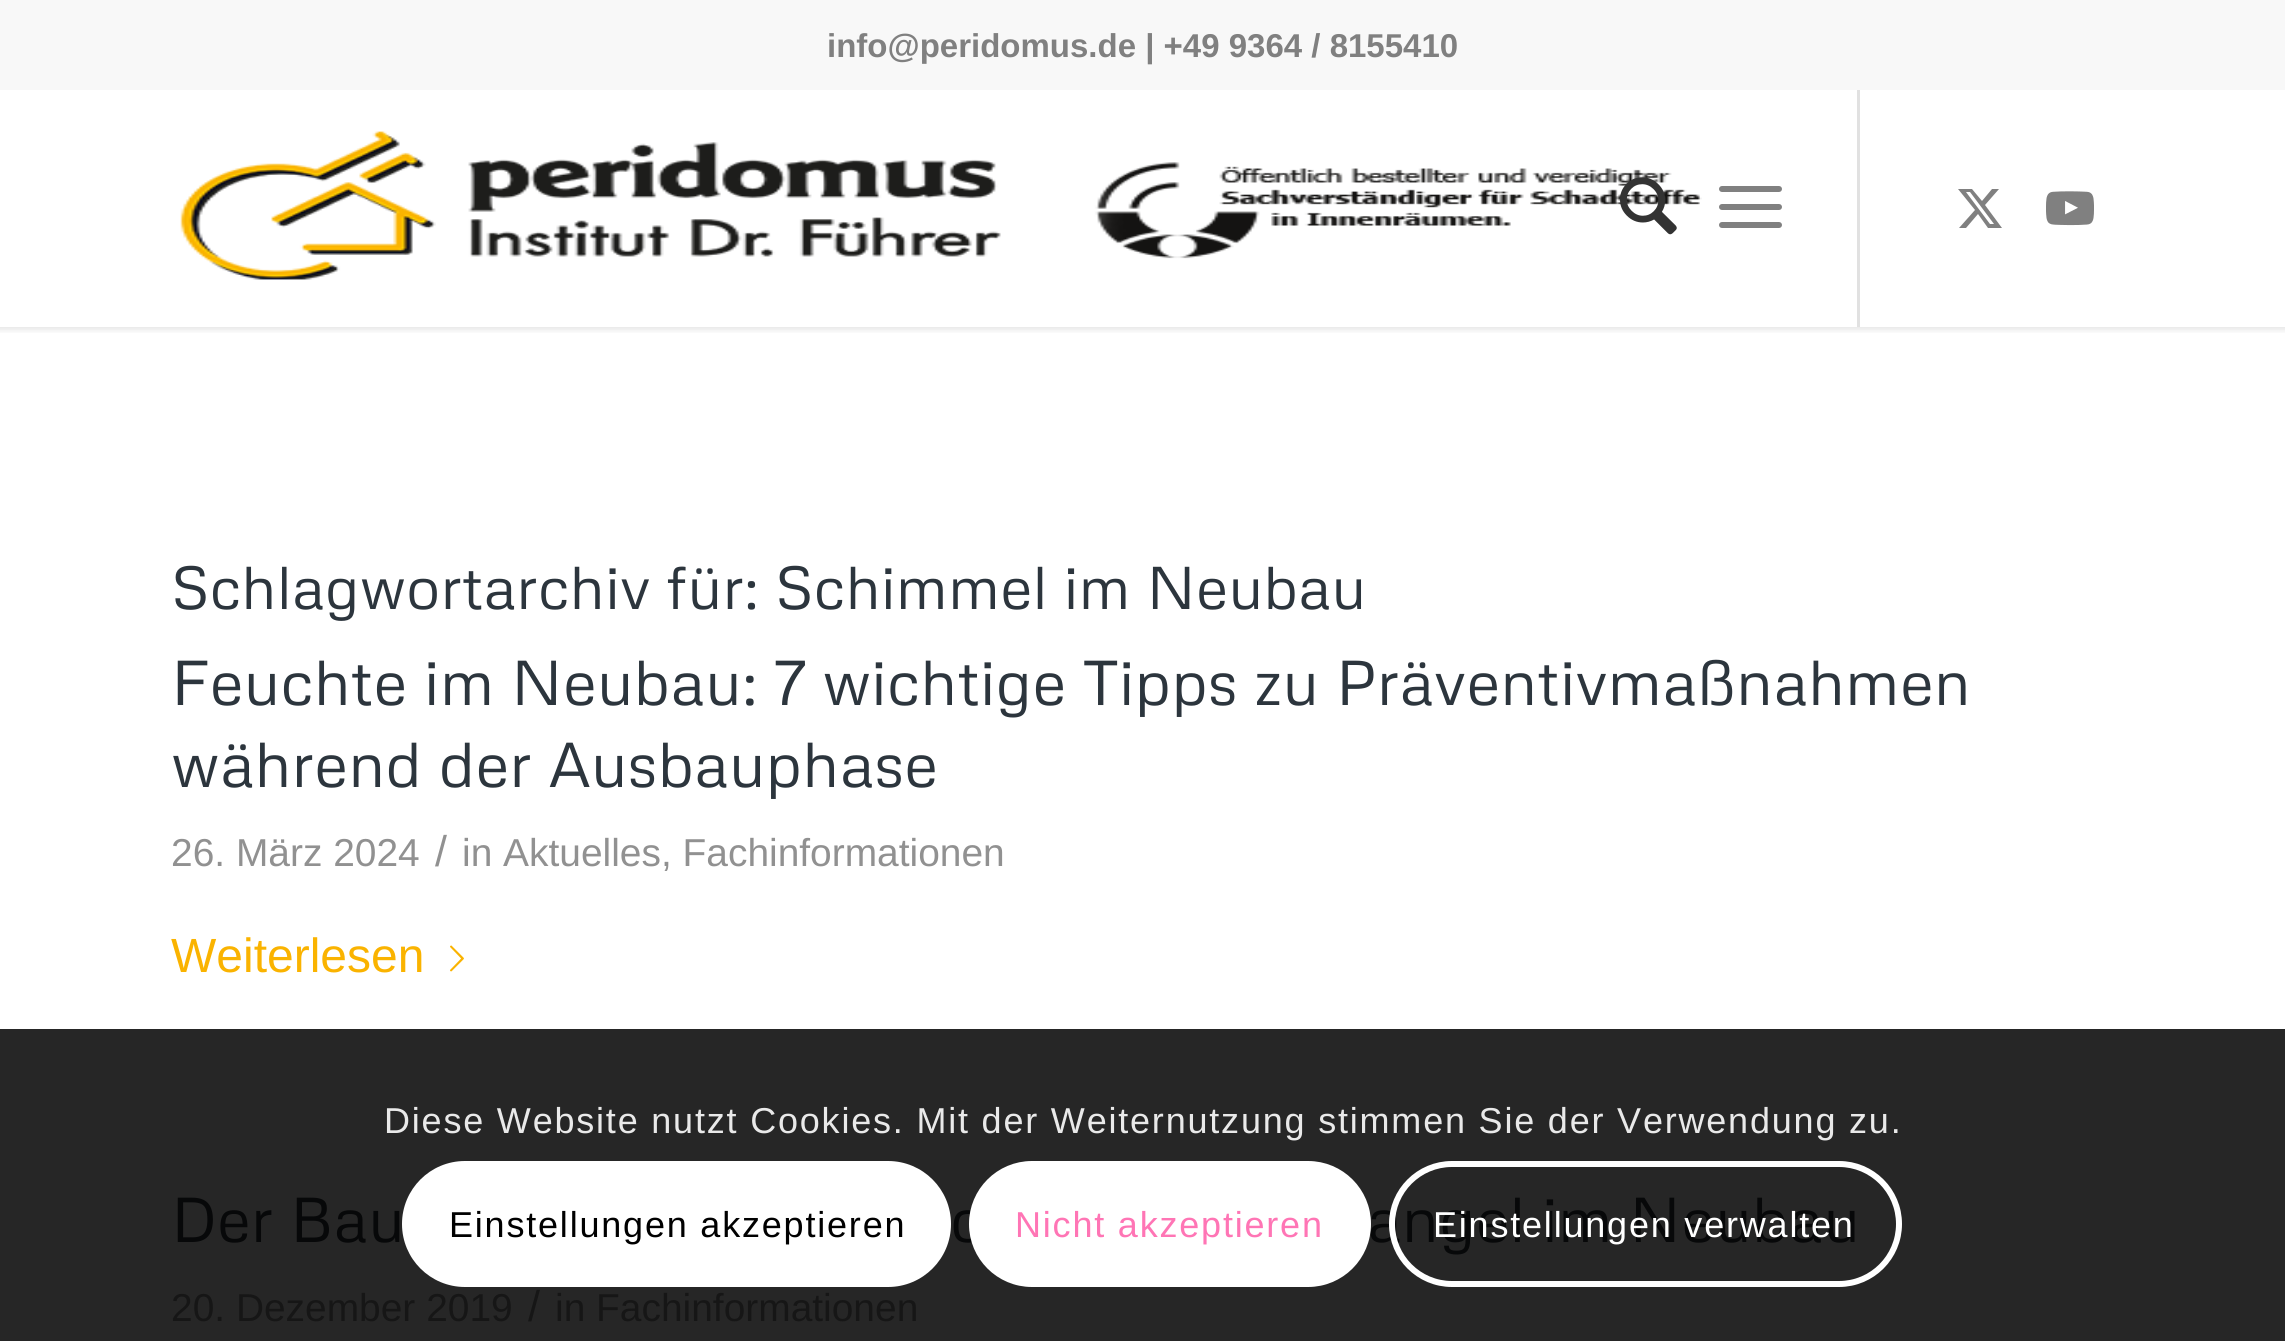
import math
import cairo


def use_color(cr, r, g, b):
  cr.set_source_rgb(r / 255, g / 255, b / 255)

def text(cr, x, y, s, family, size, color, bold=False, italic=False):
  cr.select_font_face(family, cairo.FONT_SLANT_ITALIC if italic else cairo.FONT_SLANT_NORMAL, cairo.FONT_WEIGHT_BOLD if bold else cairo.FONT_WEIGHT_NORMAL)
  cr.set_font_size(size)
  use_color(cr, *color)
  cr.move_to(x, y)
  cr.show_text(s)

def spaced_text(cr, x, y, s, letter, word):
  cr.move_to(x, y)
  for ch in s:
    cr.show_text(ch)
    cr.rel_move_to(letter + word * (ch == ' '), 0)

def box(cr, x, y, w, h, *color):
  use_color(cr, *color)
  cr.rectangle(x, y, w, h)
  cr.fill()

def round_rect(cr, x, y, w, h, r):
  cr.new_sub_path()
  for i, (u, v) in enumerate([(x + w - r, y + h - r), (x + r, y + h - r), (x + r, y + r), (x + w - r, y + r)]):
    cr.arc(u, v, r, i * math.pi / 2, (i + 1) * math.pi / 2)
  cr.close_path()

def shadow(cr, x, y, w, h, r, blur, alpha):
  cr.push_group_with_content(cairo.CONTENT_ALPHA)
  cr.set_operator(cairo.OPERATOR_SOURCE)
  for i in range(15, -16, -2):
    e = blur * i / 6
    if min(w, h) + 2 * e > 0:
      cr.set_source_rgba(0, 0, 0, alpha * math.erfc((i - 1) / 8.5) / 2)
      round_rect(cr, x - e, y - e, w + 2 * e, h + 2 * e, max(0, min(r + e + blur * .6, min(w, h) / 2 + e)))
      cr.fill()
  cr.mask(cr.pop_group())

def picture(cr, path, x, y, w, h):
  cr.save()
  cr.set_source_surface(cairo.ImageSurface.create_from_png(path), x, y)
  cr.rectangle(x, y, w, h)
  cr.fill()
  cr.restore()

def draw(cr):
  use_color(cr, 255, 255, 255)
  cr.paint()
  box(cr, 0, 1029, 2285, 312, 38, 38, 38)
  cr.save()
  cr.rectangle(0, 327, 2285, 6)
  cr.clip()
  use_color(cr, 0, 0, 0)
  shadow(cr, -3, -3, 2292, 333, 0, 3, 0.1)
  cr.restore()
  box(cr, 1857, 87, 3, 240, 225, 225, 225)
  box(cr, 0, 0, 2285, 90, 248, 248, 248)
  picture(cr, "img_01.png", 180, 131, 1522, 149)
  picture(cr, "img_02.png", 1620, 177, 57, 58)
  use_color(cr, 128, 128, 128)
  round_rect(cr, 1719, 204, 63, 6, 3)
  cr.fill()
  round_rect(cr, 1719, 186, 63, 6, 3)
  cr.fill()
  round_rect(cr, 1719, 222, 63, 6, 3)
  cr.fill()
  cr.new_path()
  cr.move_to(1992, 189)
  cr.line_to(1999, 189)
  cr.line_to(1985, 205)
  cr.line_to(2002, 228)
  cr.line_to(1988, 228)
  cr.line_to(1978, 214)
  cr.line_to(1966, 228)
  cr.line_to(1959, 228)
  cr.line_to(1975, 210)
  cr.line_to(1958, 189)
  cr.line_to(1972, 189)
  cr.line_to(1982, 201)
  cr.close_path()
  cr.move_to(1990, 224)
  cr.line_to(1994, 224)
  cr.line_to(1970, 192)
  cr.line_to(1966, 192)
  cr.close_path()
  cr.fill()
  picture(cr, "img_03.png", 2046, 191, 48, 35)
  picture(cr, "img_04.png", 450, 945, 14, 27)
  use_color(cr, 255, 255, 255)
  round_rect(cr, 402, 1161, 549, 126, 63)
  cr.fill()
  text(cr, 827, 57, "info@peridomus.de | +49 9364 / 8155410", "Liberation Sans", 33, (128, 128, 128), bold=True)
  text(cr, 171, 609, "Schlagwortarchiv für: Schimmel im Neubau", "Metrophobic", 60, (44, 53, 61))
  text(cr, 171, 705, "Feuchte im Neubau: 7 wichtige Tipps zu Präventivmaßnahmen", "Metrophobic", 63, (44, 53, 61))
  text(cr, 171, 787, "während der Ausbauphase", "Metrophobic", 63, (44, 53, 61))
  text(cr, 171, 866, "26. März 2024", "Liberation Sans", 38.9, (145, 145, 145))
  text(cr, 435, 866, "/", "Liberation Sans", 43, (145, 145, 145))
  text(cr, 462, 866, "in Aktuelles, Fachinformationen", "Liberation Sans", 38.9, (145, 145, 145))
  text(cr, 171, 972, "Weiterlesen", "Liberation Sans", 48, (250, 179, 0))
  text(cr, 171, 1242, "Der Bau", "Metrophobic", 63, (7, 8, 9))
  text(cr, 950, 1242, "c", "Metrophobic", 63, (7, 8, 9))
  text(cr, 1367, 1242, "angel im Neubau", "Metrophobic", 63, (7, 8, 9))
  text(cr, 171, 1321, "20. Dezember 2019", "Liberation Sans", 38.9, (22, 22, 22))
  text(cr, 528, 1321, "/", "Liberation Sans", 43, (22, 22, 22))
  text(cr, 555, 1321, "in Fachinformationen", "Liberation Sans", 38.9, (22, 22, 22))
  cr.set_font_size(36)
  use_color(cr, 233, 233, 233)
  spaced_text(cr, 384, 1133, "Diese Website nutzt Cookies. Mit der Weiternutzung stimmen Sie der Verwendung zu.", 1.8, 0)
  use_color(cr, 0, 0, 0)
  spaced_text(cr, 449, 1237, "Einstellungen akzeptieren", 1.8, 0)
  use_color(cr, 255, 255, 255)
  round_rect(cr, 972, 1164, 396, 120, 60)
  cr.fill_preserve()
  cr.set_line_width(6)
  cr.stroke()
  use_color(cr, 255, 117, 181)
  spaced_text(cr, 1015, 1237, "Nicht akzeptieren", 1.8, 0)
  round_rect(cr, 1392, 1164, 507, 120, 60)
  use_color(cr, 255, 255, 255)
  cr.stroke()
  spaced_text(cr, 1433, 1237, "Einstellungen verwalten", 1.8, 0)


surface = cairo.ImageSurface(cairo.FORMAT_RGB24, 2285, 1341)
cr = cairo.Context(surface)
options = cairo.FontOptions()
options.set_hint_metrics(cairo.HINT_METRICS_OFF)
options.set_hint_style(cairo.HINT_STYLE_NONE)
cr.set_font_options(options)
cr.set_miter_limit(4)
draw(cr)
surface.write_to_png("out.png")
